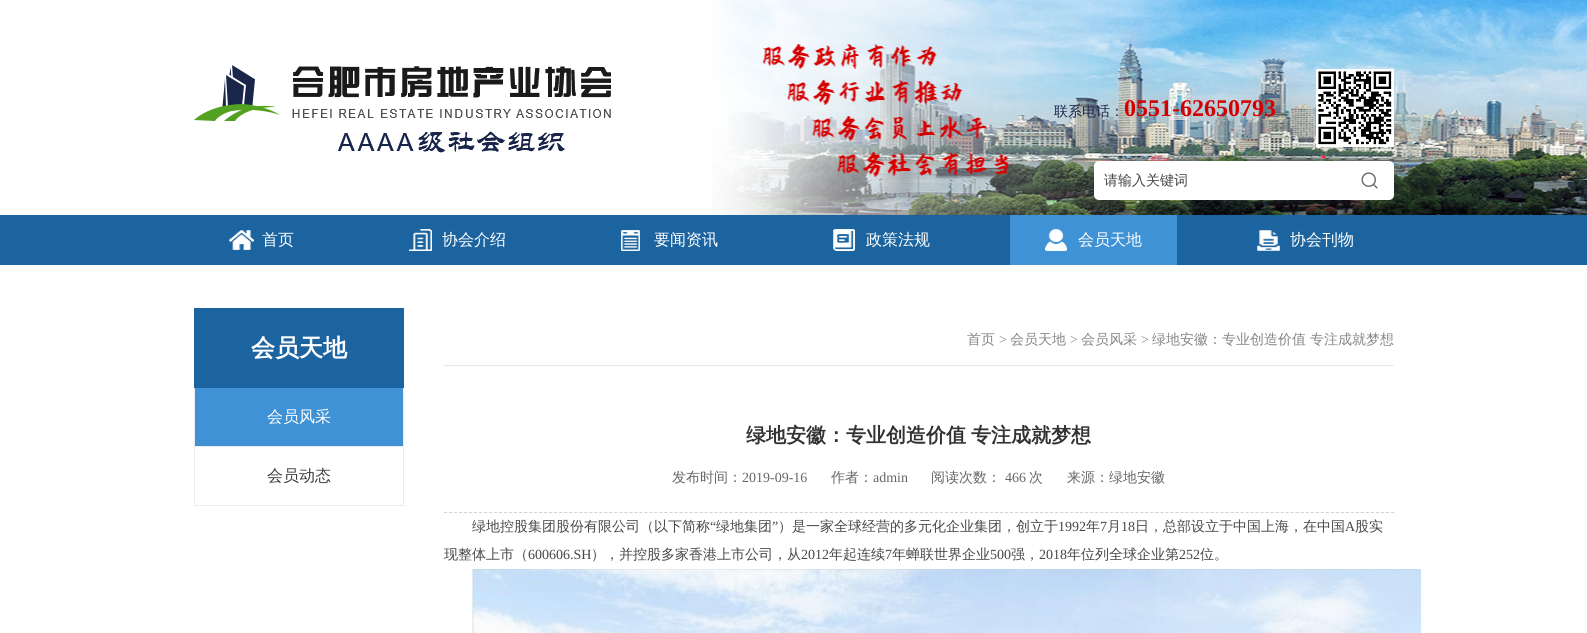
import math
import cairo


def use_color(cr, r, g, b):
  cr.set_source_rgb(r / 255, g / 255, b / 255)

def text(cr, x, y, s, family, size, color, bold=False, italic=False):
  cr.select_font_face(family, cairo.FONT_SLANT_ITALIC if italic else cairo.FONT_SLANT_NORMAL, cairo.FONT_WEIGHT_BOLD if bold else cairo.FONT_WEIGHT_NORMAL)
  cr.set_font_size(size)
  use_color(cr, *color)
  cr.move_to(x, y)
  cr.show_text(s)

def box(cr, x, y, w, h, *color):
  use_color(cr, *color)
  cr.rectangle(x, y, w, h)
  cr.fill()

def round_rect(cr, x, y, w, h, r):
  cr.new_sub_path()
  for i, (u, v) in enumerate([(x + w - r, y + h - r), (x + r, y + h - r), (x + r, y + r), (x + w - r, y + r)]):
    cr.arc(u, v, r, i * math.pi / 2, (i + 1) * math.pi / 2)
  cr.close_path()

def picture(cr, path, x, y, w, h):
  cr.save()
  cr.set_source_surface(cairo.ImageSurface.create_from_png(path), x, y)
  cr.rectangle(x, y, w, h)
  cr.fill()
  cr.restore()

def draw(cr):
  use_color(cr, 255, 255, 255)
  cr.paint()
  picture(cr, "img_01.png", 712, 0, 875, 215)
  picture(cr, "img_02.png", 194, 65, 417, 88)
  picture(cr, "img_03.png", 1316, 69, 78, 78)
  use_color(cr, 255, 255, 255)
  round_rect(cr, 1094, 161, 300, 39, 5)
  cr.fill()
  picture(cr, "img_04.png", 1361, 172, 17, 17)
  box(cr, 0, 215, 1587, 50, 28, 100, 159)
  picture(cr, "img_05.png", 229, 230, 25, 20)
  picture(cr, "img_06.png", 409, 229, 23, 22)
  picture(cr, "img_07.png", 621, 230, 19, 21)
  picture(cr, "img_08.png", 833, 229, 22, 22)
  box(cr, 1010, 215, 167, 50, 63, 146, 213)
  picture(cr, "img_09.png", 1045, 229, 22, 22)
  picture(cr, "img_10.png", 1257, 230, 23, 21)
  box(cr, 194, 308, 210, 80, 28, 100, 159)
  box(cr, 403, 388, 1, 118, 235, 235, 235)
  box(cr, 194, 446, 210, 1, 235, 235, 235)
  box(cr, 194, 388, 1, 59, 235, 235, 235)
  box(cr, 195, 388, 208, 58, 63, 146, 213)
  box(cr, 194, 505, 210, 1, 235, 235, 235)
  box(cr, 194, 447, 1, 59, 235, 235, 235)
  box(cr, 444, 365, 950, 1, 230, 230, 230)
  cr.new_path()
  cr.move_to(444, 512.5)
  cr.line_to(1394, 512.5)
  use_color(cr, 209, 209, 209)
  cr.set_line_width(1)
  cr.set_dash([3, 2.01])
  cr.stroke()
  picture(cr, "img_11.png", 472, 569, 949, 64)
  text(cr, 1054, 116, "联系电话：", "WenQuanYi Zen Hei Medium", 14, (25, 38, 74))
  text(cr, 1124, 116, "0551-62650793", "Liberation Serif", 24, (213, 0, 0), bold=True)
  text(cr, 1104, 185, "请输入关键词", "WenQuanYi Zen Hei Medium", 14, (65, 68, 70))
  text(cr, 262, 245, "首页", "WenQuanYi Zen Hei Medium", 16, (255, 255, 255))
  text(cr, 442, 245, "协会介绍", "WenQuanYi Zen Hei Medium", 16, (255, 255, 255))
  text(cr, 654, 245, "要闻资讯", "WenQuanYi Zen Hei Medium", 16, (255, 255, 255))
  text(cr, 866, 245, "政策法规", "WenQuanYi Zen Hei Medium", 16, (255, 255, 255))
  text(cr, 1078, 245, "会员天地", "WenQuanYi Zen Hei Medium", 16, (255, 255, 255))
  text(cr, 1290, 245, "协会刊物", "WenQuanYi Zen Hei Medium", 16, (255, 255, 255))
  text(cr, 251, 356, "会员天地", "WenQuanYi Zen Hei", 24, (255, 255, 255), bold=True)
  text(cr, 267, 422, "会员风采", "WenQuanYi Zen Hei Medium", 16, (255, 255, 255))
  text(cr, 267, 481, "会员动态", "WenQuanYi Zen Hei Medium", 16, (59, 59, 59))
  text(cr, 967, 344, "首页", "WenQuanYi Zen Hei Medium", 14, (134, 134, 134))
  text(cr, 999, 344, ">", "Liberation Serif", 14, (134, 134, 134))
  text(cr, 1010, 344, "会员天地", "WenQuanYi Zen Hei Medium", 14, (134, 134, 134))
  text(cr, 1070, 344, ">", "Liberation Serif", 14, (134, 134, 134))
  text(cr, 1081, 344, "会员风采", "WenQuanYi Zen Hei Medium", 14, (134, 134, 134))
  text(cr, 1141, 344, ">", "Liberation Serif", 14, (134, 134, 134))
  text(cr, 1152, 344, "绿地安徽：专业创造价值", "WenQuanYi Zen Hei Medium", 14, (134, 134, 134))
  text(cr, 1310, 344, "专注成就梦想", "WenQuanYi Zen Hei Medium", 14, (134, 134, 134))
  text(cr, 746, 442, "绿地安徽：专业创造价值", "WenQuanYi Zen Hei", 20, (51, 51, 51), bold=True)
  text(cr, 971, 442, "专注成就梦想", "WenQuanYi Zen Hei", 20, (51, 51, 51), bold=True)
  text(cr, 672, 482, "发布时间：", "WenQuanYi Zen Hei Medium", 14, (102, 102, 102))
  text(cr, 742, 482, "2019-09-16", "Liberation Serif", 14, (102, 102, 102))
  text(cr, 831, 482, "作者：", "WenQuanYi Zen Hei Medium", 14, (102, 102, 102))
  text(cr, 873, 482, "admin", "Liberation Serif", 14, (102, 102, 102))
  text(cr, 931, 482, "阅读次数：", "WenQuanYi Zen Hei Medium", 14, (102, 102, 102))
  text(cr, 1005, 482, "466", "Liberation Serif", 14, (102, 102, 102))
  text(cr, 1029, 482, "次", "WenQuanYi Zen Hei Medium", 14, (102, 102, 102))
  text(cr, 1067, 482, "来源：绿地安徽", "WenQuanYi Zen Hei Medium", 14, (102, 102, 102))
  text(cr, 472, 531, "绿地控股集团股份有限公司（以下简称", "WenQuanYi Zen Hei Medium", 14, (71, 71, 71))
  text(cr, 710, 531, "“", "Liberation Serif", 14, (71, 71, 71))
  text(cr, 716, 531, "绿地集团", "WenQuanYi Zen Hei Medium", 14, (71, 71, 71))
  text(cr, 772, 531, "”", "Liberation Serif", 14, (71, 71, 71))
  text(cr, 778, 531, "）是一家全球经营的多元化企业集团，创立于", "WenQuanYi Zen Hei Medium", 14, (71, 71, 71))
  text(cr, 1058, 531, "1992", "Liberation Serif", 14, (71, 71, 71))
  text(cr, 1086, 531, "年", "WenQuanYi Zen Hei Medium", 14, (71, 71, 71))
  text(cr, 1100, 531, "7", "Liberation Serif", 14, (71, 71, 71))
  text(cr, 1107, 531, "月", "WenQuanYi Zen Hei Medium", 14, (71, 71, 71))
  text(cr, 1121, 531, "18", "Liberation Serif", 14, (71, 71, 71))
  text(cr, 1135, 531, "日，总部设立于中国上海，在中国", "WenQuanYi Zen Hei Medium", 14, (71, 71, 71))
  text(cr, 1345, 531, "A", "Liberation Serif", 14, (71, 71, 71))
  text(cr, 1355, 531, "股实", "WenQuanYi Zen Hei Medium", 14, (71, 71, 71))
  text(cr, 444, 559, "现整体上市（", "WenQuanYi Zen Hei Medium", 14, (71, 71, 71))
  text(cr, 528, 559, "600606.SH", "Liberation Serif", 14, (71, 71, 71))
  text(cr, 591, 559, "），并控股多家香港上市公司，从", "WenQuanYi Zen Hei Medium", 14, (71, 71, 71))
  text(cr, 801, 559, "2012", "Liberation Serif", 14, (71, 71, 71))
  text(cr, 829, 559, "年起连续", "WenQuanYi Zen Hei Medium", 14, (71, 71, 71))
  text(cr, 885, 559, "7", "Liberation Serif", 14, (71, 71, 71))
  text(cr, 892, 559, "年蝉联世界企业", "WenQuanYi Zen Hei Medium", 14, (71, 71, 71))
  text(cr, 990, 559, "500", "Liberation Serif", 14, (71, 71, 71))
  text(cr, 1011, 559, "强，", "WenQuanYi Zen Hei Medium", 14, (71, 71, 71))
  text(cr, 1039, 559, "2018", "Liberation Serif", 14, (71, 71, 71))
  text(cr, 1067, 559, "年位列全球企业第", "WenQuanYi Zen Hei Medium", 14, (71, 71, 71))
  text(cr, 1179, 559, "252", "Liberation Serif", 14, (71, 71, 71))
  text(cr, 1200, 559, "位。", "WenQuanYi Zen Hei Medium", 14, (71, 71, 71))


surface = cairo.ImageSurface(cairo.FORMAT_RGB24, 1587, 633)
cr = cairo.Context(surface)
options = cairo.FontOptions()
options.set_hint_metrics(cairo.HINT_METRICS_OFF)
options.set_hint_style(cairo.HINT_STYLE_NONE)
cr.set_font_options(options)
cr.set_miter_limit(4)
draw(cr)
surface.write_to_png("out.png")
